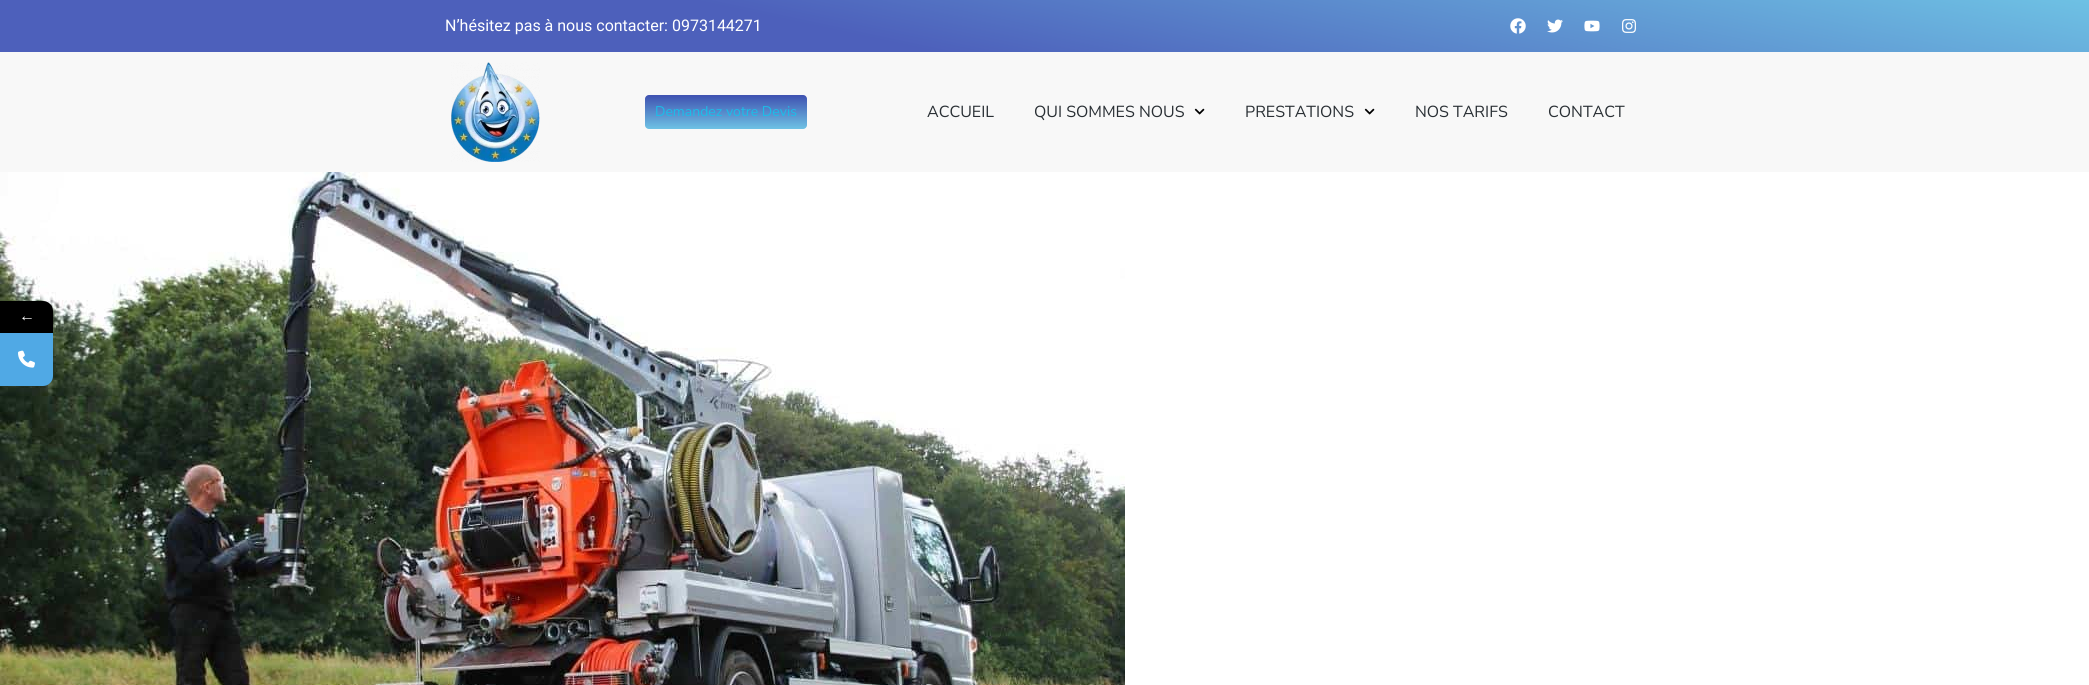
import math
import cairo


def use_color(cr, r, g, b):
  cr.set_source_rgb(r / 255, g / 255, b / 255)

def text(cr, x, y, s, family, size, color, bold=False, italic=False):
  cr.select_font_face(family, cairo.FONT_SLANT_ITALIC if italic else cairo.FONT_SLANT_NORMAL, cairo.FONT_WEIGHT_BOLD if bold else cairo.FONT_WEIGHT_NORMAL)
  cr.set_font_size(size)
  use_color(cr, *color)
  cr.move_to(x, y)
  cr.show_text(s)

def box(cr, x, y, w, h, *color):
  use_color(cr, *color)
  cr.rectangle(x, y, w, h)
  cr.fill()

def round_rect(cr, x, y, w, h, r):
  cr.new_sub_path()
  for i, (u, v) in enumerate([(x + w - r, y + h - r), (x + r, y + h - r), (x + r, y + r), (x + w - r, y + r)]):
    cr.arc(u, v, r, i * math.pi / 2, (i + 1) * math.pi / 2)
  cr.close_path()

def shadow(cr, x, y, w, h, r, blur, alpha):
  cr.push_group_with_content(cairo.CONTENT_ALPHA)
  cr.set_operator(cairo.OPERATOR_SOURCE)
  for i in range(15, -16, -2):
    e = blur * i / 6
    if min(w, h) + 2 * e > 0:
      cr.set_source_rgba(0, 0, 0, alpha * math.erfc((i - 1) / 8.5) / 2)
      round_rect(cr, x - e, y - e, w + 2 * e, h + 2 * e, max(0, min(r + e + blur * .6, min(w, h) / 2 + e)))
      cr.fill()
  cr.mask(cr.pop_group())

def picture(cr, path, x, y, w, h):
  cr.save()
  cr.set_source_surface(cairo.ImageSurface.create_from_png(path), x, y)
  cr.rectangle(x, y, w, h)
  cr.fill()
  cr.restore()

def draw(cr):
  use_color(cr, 255, 255, 255)
  cr.paint()
  gradient = cairo.LinearGradient(1095, -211, 994, 263)
  gradient.add_color_stop_rgba(0, 0.431, 0.757, 0.894, 1)
  gradient.add_color_stop_rgba(0.6, 0.302, 0.376, 0.733, 1)
  cr.set_source(gradient)
  cr.rectangle(0, 0, 2089, 52)
  cr.fill()
  picture(cr, "img_01.png", 1510, 18, 16, 16)
  picture(cr, "img_02.png", 1547, 19, 16, 14)
  picture(cr, "img_03.png", 1584, 20, 16, 12)
  picture(cr, "img_04.png", 1622, 19, 14, 14)
  box(cr, 0, 52, 2089, 120, 248, 248, 248)
  picture(cr, "img_05.png", 451, 62, 89, 100)
  gradient = cairo.LinearGradient(726, 95, 726, 129)
  gradient.add_color_stop_rgba(0.03, 0.251, 0.329, 0.698, 1)
  gradient.add_color_stop_rgba(0.99, 0.431, 0.757, 0.894, 1)
  cr.set_source(gradient)
  round_rect(cr, 645, 95, 162, 34, 4)
  cr.fill()
  picture(cr, "img_06.png", 1194, 108, 11, 7)
  picture(cr, "img_06.png", 1364, 108, 11, 7)
  picture(cr, "img_07.png", 0, 172, 1125, 513)
  use_color(cr, 0, 0, 0)
  shadow(cr, 0, 304, 53, 32, 10, 3, 0.16)
  use_color(cr, 0, 0, 0)
  cr.new_path()
  cr.move_to(0, 301)
  cr.line_to(43, 301)
  cr.curve_to(48.5, 301, 53, 305.5, 53, 311)
  cr.line_to(53, 333)
  cr.line_to(0, 333)
  cr.close_path()
  cr.fill()
  use_color(cr, 80, 169, 229)
  cr.new_path()
  cr.move_to(0, 333)
  cr.line_to(53, 333)
  cr.line_to(53, 376)
  cr.curve_to(53, 381.5, 48.5, 386, 43, 386)
  cr.line_to(0, 386)
  cr.close_path()
  cr.fill()
  picture(cr, "img_08.png", 18, 350, 17, 18)
  text(cr, 445, 31, "N’hésitez pas à nous contacter: 0973144271", "Roboto", 16, (255, 255, 255))
  text(cr, 655, 116, "Demandez votre Devis", "Nunito Sans", 14, (27, 189, 232))
  text(cr, 927, 117, "ACCUEIL", "Nunito Sans", 16, (41, 47, 52))
  text(cr, 1034, 117, "QUI SOMMES NOUS", "Nunito Sans", 16, (41, 47, 52))
  text(cr, 1245, 117, "PRESTATIONS", "Nunito Sans", 16, (41, 47, 52))
  text(cr, 1415, 117, "NOS TARIFS", "Nunito Sans", 16, (41, 47, 52))
  text(cr, 1548, 117, "CONTACT", "Nunito Sans", 16, (41, 47, 52))
  text(cr, 19, 321, "←", "Liberation Serif", 16, (255, 255, 255))


surface = cairo.ImageSurface(cairo.FORMAT_RGB24, 2089, 685)
cr = cairo.Context(surface)
options = cairo.FontOptions()
options.set_hint_metrics(cairo.HINT_METRICS_OFF)
options.set_hint_style(cairo.HINT_STYLE_NONE)
cr.set_font_options(options)
cr.set_miter_limit(4)
draw(cr)
surface.write_to_png("out.png")
